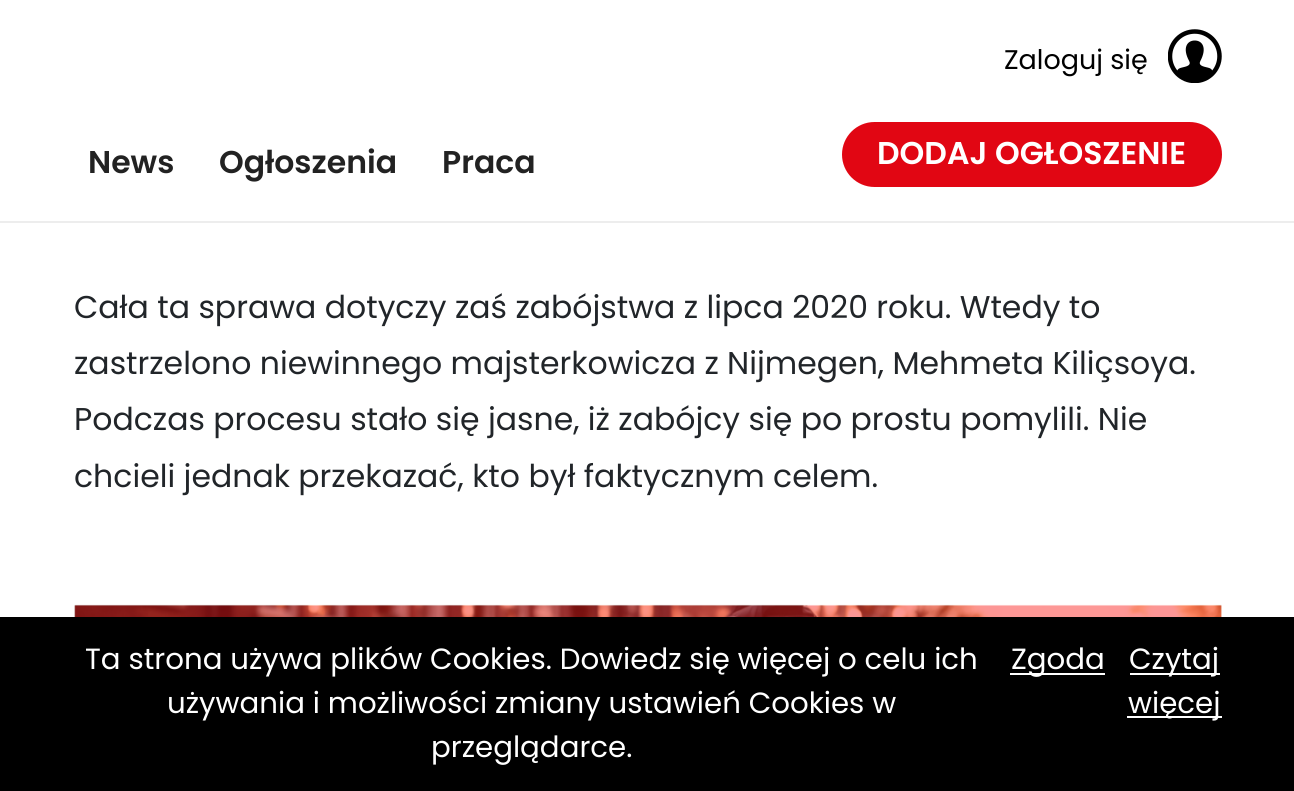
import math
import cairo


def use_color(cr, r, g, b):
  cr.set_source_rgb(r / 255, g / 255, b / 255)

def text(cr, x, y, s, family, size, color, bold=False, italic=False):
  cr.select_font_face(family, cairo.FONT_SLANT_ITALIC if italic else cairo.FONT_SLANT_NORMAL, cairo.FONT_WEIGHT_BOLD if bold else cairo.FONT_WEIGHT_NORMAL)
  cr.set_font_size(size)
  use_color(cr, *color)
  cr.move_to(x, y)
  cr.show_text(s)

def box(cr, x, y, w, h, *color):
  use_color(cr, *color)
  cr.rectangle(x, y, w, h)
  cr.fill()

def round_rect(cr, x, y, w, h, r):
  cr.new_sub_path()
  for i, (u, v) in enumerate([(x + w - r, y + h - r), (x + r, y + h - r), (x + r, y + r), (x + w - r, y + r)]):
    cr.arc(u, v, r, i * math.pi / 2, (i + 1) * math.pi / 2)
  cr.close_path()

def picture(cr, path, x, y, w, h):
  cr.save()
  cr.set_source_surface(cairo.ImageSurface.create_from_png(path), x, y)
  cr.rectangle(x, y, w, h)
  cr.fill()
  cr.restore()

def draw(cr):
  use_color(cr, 255, 255, 255)
  cr.paint()
  box(cr, 0, 221, 1294, 2, 237, 237, 237)
  picture(cr, "img_01.png", 1168, 29, 54, 54)
  use_color(cr, 225, 6, 19)
  round_rect(cr, 843, 123, 378, 63, 31.5)
  cr.fill_preserve()
  cr.stroke()
  picture(cr, "img_02.png", 74, 604, 1148, 13)
  box(cr, 0, 617, 1294, 174, 0, 0, 0)
  box(cr, 1010, 673, 95, 2, 255, 255, 255)
  box(cr, 1130, 673, 90, 2, 255, 255, 255)
  box(cr, 1127, 716, 95, 2, 255, 255, 255)
  text(cr, 1004, 69, "Zaloguj się", "Poppins", 27, (0, 0, 0))
  text(cr, 88, 173, "News", "Poppins SemiBold", 31.5, (34, 34, 34))
  text(cr, 219, 173, "Ogłoszenia", "Poppins SemiBold", 31.5, (34, 34, 34))
  text(cr, 442, 173, "Praca", "Poppins SemiBold", 31.5, (34, 34, 34))
  text(cr, 877, 164, "DODAJ OGŁOSZENIE", "Poppins SemiBold", 31.5, (255, 255, 255))
  text(cr, 74, 318, "Cała ta sprawa dotyczy zaś zabójstwa z lipca 2020 roku. Wtedy to", "Poppins", 31.5, (33, 37, 41))
  text(cr, 74, 374, "zastrzelono niewinnego majsterkowicza z Nijmegen, Mehmeta Kiliçsoya.", "Poppins", 31.5, (33, 37, 41))
  text(cr, 74, 430, "Podczas procesu stało się jasne, iż zabójcy się po prostu pomylili. Nie", "Poppins", 31.5, (33, 37, 41))
  text(cr, 74, 487, "chcieli jednak przekazać, kto był faktycznym celem.", "Poppins", 31.5, (33, 37, 41))
  text(cr, 85, 669, "Ta strona używa plików Cookies. Dowiedz się więcej o celu ich", "Poppins", 29.25, (255, 255, 255))
  text(cr, 167, 713, "używania i możliwości zmiany ustawień Cookies w", "Poppins", 29.25, (255, 255, 255))
  text(cr, 431, 757, "przeglądarce.", "Poppins", 29.25, (255, 255, 255))
  text(cr, 1011, 669, "Zgoda", "Poppins", 29.25, (255, 255, 255))
  text(cr, 1129, 669, "Czytaj", "Poppins", 29.25, (255, 255, 255))
  text(cr, 1128, 713, "więcej", "Poppins", 29.25, (255, 255, 255))


surface = cairo.ImageSurface(cairo.FORMAT_RGB24, 1294, 791)
cr = cairo.Context(surface)
options = cairo.FontOptions()
options.set_hint_metrics(cairo.HINT_METRICS_OFF)
options.set_hint_style(cairo.HINT_STYLE_NONE)
cr.set_font_options(options)
cr.set_miter_limit(4)
draw(cr)
surface.write_to_png("out.png")
